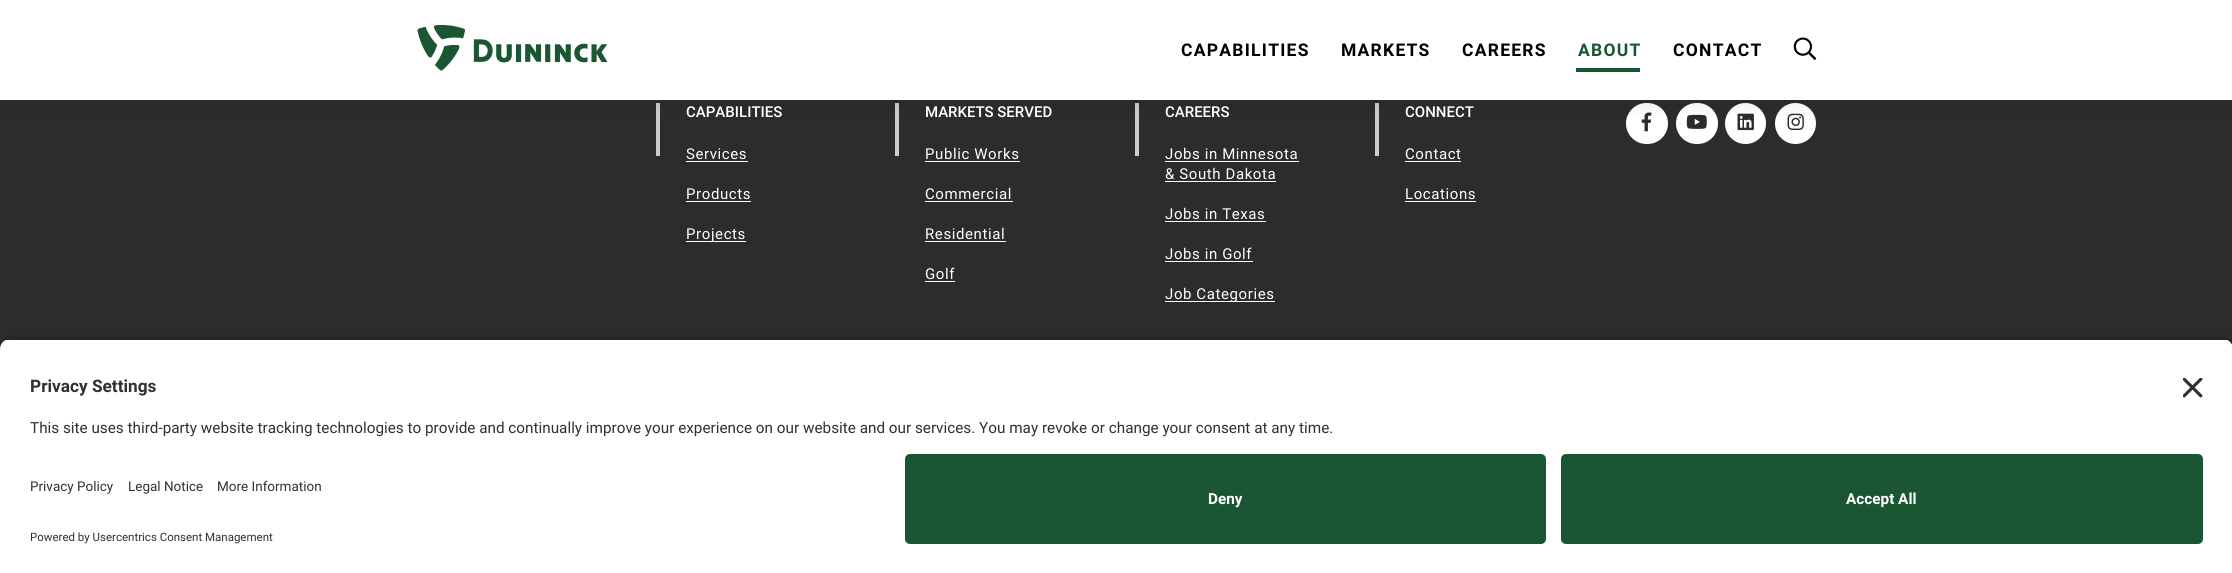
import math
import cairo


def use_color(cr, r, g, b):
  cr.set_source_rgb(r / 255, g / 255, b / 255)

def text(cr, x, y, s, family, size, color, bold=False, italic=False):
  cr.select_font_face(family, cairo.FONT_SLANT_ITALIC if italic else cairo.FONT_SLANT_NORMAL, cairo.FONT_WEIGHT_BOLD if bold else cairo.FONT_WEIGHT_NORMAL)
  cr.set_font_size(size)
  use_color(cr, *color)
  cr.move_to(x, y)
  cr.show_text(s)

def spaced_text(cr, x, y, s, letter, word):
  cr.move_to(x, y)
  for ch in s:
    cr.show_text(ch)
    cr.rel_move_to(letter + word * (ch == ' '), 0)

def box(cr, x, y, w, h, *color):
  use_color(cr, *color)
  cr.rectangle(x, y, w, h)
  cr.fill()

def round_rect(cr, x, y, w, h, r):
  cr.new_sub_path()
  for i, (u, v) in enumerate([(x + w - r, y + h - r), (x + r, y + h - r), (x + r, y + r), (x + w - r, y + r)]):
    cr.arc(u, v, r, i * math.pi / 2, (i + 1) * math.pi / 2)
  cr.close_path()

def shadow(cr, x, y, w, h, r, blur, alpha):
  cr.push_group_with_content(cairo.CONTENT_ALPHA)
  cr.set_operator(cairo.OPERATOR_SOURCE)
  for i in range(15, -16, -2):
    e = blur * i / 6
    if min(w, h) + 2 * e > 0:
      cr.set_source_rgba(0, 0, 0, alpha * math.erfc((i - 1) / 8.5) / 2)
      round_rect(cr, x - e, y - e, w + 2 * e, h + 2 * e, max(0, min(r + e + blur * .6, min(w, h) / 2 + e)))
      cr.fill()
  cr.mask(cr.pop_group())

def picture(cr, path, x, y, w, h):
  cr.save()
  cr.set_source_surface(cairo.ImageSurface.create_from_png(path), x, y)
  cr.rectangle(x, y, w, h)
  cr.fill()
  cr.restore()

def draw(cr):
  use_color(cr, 44, 44, 44)
  cr.paint()
  box(cr, 656, 103, 4, 53, 204, 204, 204)
  box(cr, 895, 103, 4, 53, 204, 204, 204)
  box(cr, 1135, 103, 4, 53, 204, 204, 204)
  box(cr, 1375, 103, 4, 53, 204, 204, 204)
  use_color(cr, 255, 255, 255)
  round_rect(cr, 1626, 103, 42, 41, 20.5)
  cr.fill()
  picture(cr, "img_03.png", 1641, 112, 11, 20)
  round_rect(cr, 1676, 103, 42, 41, 20.5)
  cr.fill()
  picture(cr, "img_04.png", 1686, 114, 21, 15)
  cr.arc(1745.5, 123.5, 20.5, 0, 2 * math.pi)
  cr.fill()
  picture(cr, "img_05.png", 1737, 113, 17, 18)
  cr.arc(1795.5, 123.5, 20.5, 0, 2 * math.pi)
  cr.fill()
  picture(cr, "img_06.png", 1787, 113, 17, 17)
  use_color(cr, 0, 0, 0)
  shadow(cr, 0, 0, 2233, 100, 0, 9.5, 0.15)
  box(cr, 0, 0, 2232, 100, 255, 255, 255)
  picture(cr, "img_01.png", 417, 25, 191, 46)
  picture(cr, "img_02.png", 1793, 37, 24, 23)
  box(cr, 1576, 68, 64, 4, 27, 86, 51)
  box(cr, 686, 161, 62, 1, 255, 255, 255)
  box(cr, 686, 201, 65, 1, 255, 255, 255)
  box(cr, 686, 241, 60, 1, 255, 255, 255)
  box(cr, 925, 161, 95, 1, 255, 255, 255)
  box(cr, 925, 201, 88, 1, 255, 255, 255)
  box(cr, 925, 241, 81, 1, 255, 255, 255)
  box(cr, 925, 281, 30, 1, 255, 255, 255)
  box(cr, 1165, 161, 134, 1, 255, 255, 255)
  box(cr, 1165, 181, 111, 1, 255, 255, 255)
  box(cr, 1165, 221, 101, 1, 255, 255, 255)
  box(cr, 1165, 261, 88, 1, 255, 255, 255)
  box(cr, 1165, 301, 110, 1, 255, 255, 255)
  box(cr, 1405, 161, 56, 1, 255, 255, 255)
  box(cr, 1405, 201, 71, 1, 255, 255, 255)
  use_color(cr, 0, 0, 0)
  shadow(cr, 0, 343, 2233, 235, 10, 4.5, 0.8)
  cr.save()
  cr.new_path()
  cr.move_to(10, 339)
  cr.line_to(2223, 339)
  cr.curve_to(2228.5, 339, 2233, 343.5, 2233, 349)
  cr.line_to(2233, 444)
  cr.line_to(0, 444)
  cr.line_to(0, 349)
  cr.curve_to(0, 343.5, 4.5, 339, 10, 339)
  cr.close_path()
  cr.clip()
  box(cr, 0, 340, 2232, 104, 255, 255, 255)
  cr.restore()
  picture(cr, "img_07.png", 2183, 378, 20, 20)
  box(cr, 0, 444, 2232, 129, 255, 255, 255)
  use_color(cr, 27, 86, 51)
  round_rect(cr, 905, 454, 641, 90, 5)
  cr.fill()
  round_rect(cr, 1561, 454, 642, 90, 5)
  cr.fill()
  cr.select_font_face("Roboto", cairo.FONT_SLANT_NORMAL, cairo.FONT_WEIGHT_BOLD)
  cr.set_font_size(17.5)
  use_color(cr, 0, 0, 0)
  spaced_text(cr, 1181, 56, "CAPABILITIES", 1.25, 0)
  spaced_text(cr, 1341, 56, "MARKETS", 1.25, 0)
  spaced_text(cr, 1462, 56, "CAREERS", 1.25, 0)
  use_color(cr, 27, 86, 51)
  spaced_text(cr, 1578, 56, "ABOUT", 1.25, 0)
  use_color(cr, 0, 0, 0)
  spaced_text(cr, 1673, 56, "CONTACT", 1.25, 0)
  text(cr, 686, 117, "CAPABILITIES", "Roboto Medium", 15, (255, 255, 255))
  cr.select_font_face("Roboto")
  spaced_text(cr, 686, 159, "Services", 0.6, 0)
  spaced_text(cr, 686, 199, "Products", 0.6, 0)
  spaced_text(cr, 686, 239, "Projects", 0.6, 0)
  text(cr, 925, 117, "MARKETS SERVED", "Roboto Medium", 15, (255, 255, 255))
  cr.select_font_face("Roboto")
  spaced_text(cr, 925, 159, "Public Works", 0.6, 0)
  spaced_text(cr, 925, 199, "Commercial", 0.6, 0)
  spaced_text(cr, 925, 239, "Residential", 0.6, 0)
  spaced_text(cr, 925, 279, "Golf", 0.6, 0)
  text(cr, 1165, 117, "CAREERS", "Roboto Medium", 15, (255, 255, 255))
  cr.select_font_face("Roboto")
  spaced_text(cr, 1165, 159, "Jobs in Minnesota", 0.6, 0)
  spaced_text(cr, 1165, 179, "& South Dakota", 0.6, 0)
  spaced_text(cr, 1165, 219, "Jobs in Texas", 0.6, 0)
  spaced_text(cr, 1165, 259, "Jobs in Golf", 0.6, 0)
  spaced_text(cr, 1165, 299, "Job Categories", 0.6, 0)
  text(cr, 1405, 117, "CONNECT", "Roboto Medium", 15, (255, 255, 255))
  cr.select_font_face("Roboto")
  spaced_text(cr, 1405, 159, "Contact", 0.6, 0)
  spaced_text(cr, 1405, 199, "Locations", 0.6, 0)
  text(cr, 30, 392, "Privacy Settings", "Roboto", 17.25, (48, 48, 48), bold=True)
  text(cr, 30, 433, "This site uses third-party website tracking technologies to provide and continually improve your experience on our website and our services. You may revoke or change your consent at any time.", "Roboto", 15.3, (48, 48, 48))
  text(cr, 30, 491, "Privacy Policy", "Roboto", 13.5, (48, 48, 48))
  text(cr, 128, 491, "Legal Notice", "Roboto", 13.5, (48, 48, 48))
  text(cr, 217, 491, "More Information", "Roboto", 13.5, (48, 48, 48))
  text(cr, 30, 541, "Powered by Usercentrics Consent Management", "Roboto", 11.5, (48, 48, 48))
  text(cr, 1208, 504, "Deny", "Roboto", 15.3, (255, 255, 255), bold=True)
  text(cr, 1846, 504, "Accept All", "Roboto", 15.3, (255, 255, 255), bold=True)


surface = cairo.ImageSurface(cairo.FORMAT_RGB24, 2232, 573)
cr = cairo.Context(surface)
options = cairo.FontOptions()
options.set_hint_metrics(cairo.HINT_METRICS_OFF)
options.set_hint_style(cairo.HINT_STYLE_NONE)
cr.set_font_options(options)
cr.set_miter_limit(4)
draw(cr)
surface.write_to_png("out.png")
